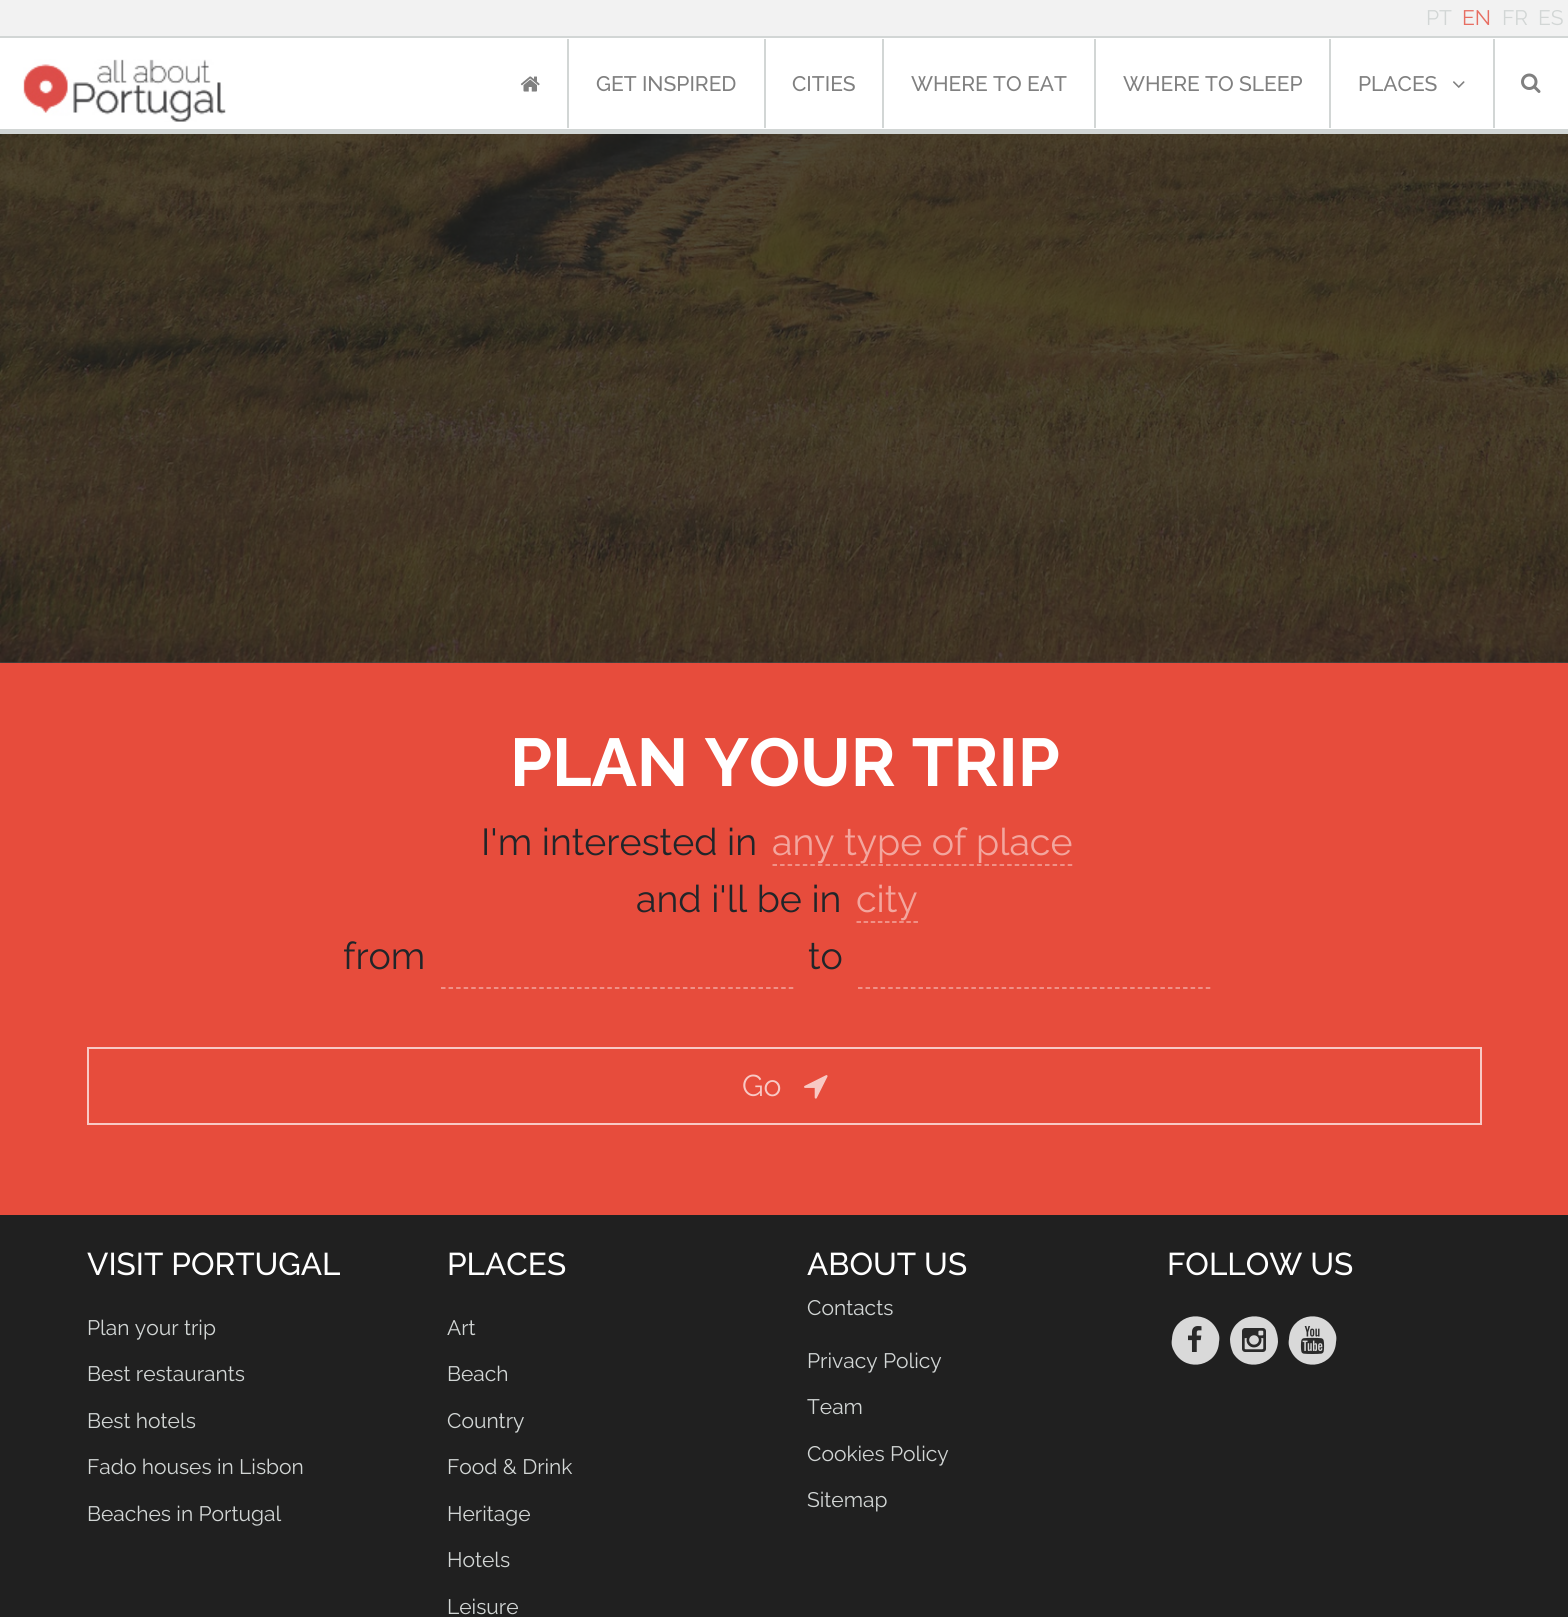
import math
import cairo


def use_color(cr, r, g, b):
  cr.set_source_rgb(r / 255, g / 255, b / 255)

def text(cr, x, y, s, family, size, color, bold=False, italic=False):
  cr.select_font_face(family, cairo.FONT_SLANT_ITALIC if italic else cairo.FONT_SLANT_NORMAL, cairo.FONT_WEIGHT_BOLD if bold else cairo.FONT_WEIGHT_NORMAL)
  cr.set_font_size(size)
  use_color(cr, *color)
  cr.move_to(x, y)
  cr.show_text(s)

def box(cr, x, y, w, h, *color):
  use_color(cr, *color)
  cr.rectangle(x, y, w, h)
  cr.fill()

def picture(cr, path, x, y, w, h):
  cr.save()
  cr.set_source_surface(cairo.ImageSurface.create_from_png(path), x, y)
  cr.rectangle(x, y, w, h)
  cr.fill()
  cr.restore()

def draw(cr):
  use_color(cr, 77, 77, 77)
  cr.paint()
  box(cr, 0, 38, 1568, 91, 255, 255, 255)
  box(cr, 0, 129, 1568, 5, 210, 214, 213)
  box(cr, 0, 0, 1568, 36, 242, 242, 242)
  box(cr, 0, 36, 1568, 2, 210, 214, 213)
  picture(cr, "img_01.png", 23, 59, 203, 63)
  box(cr, 567, 39, 2, 89, 210, 214, 213)
  picture(cr, "img_02.png", 520, 76, 20, 16)
  box(cr, 764, 39, 2, 89, 210, 214, 213)
  box(cr, 882, 39, 2, 89, 210, 214, 213)
  box(cr, 1094, 39, 2, 89, 210, 214, 213)
  box(cr, 1329, 39, 2, 89, 210, 214, 213)
  box(cr, 1493, 39, 2, 89, 210, 214, 213)
  picture(cr, "img_03.png", 1453, 81, 12, 7)
  picture(cr, "img_04.png", 1521, 73, 20, 20)
  picture(cr, "img_05.png", 0, 134, 1568, 529)
  box(cr, 0, 1215, 1568, 402, 32, 32, 32)
  box(cr, 0, 663, 1568, 552, 231, 76, 60)
  cr.new_path()
  cr.move_to(772.5, 865)
  cr.line_to(1072.5, 865)
  use_color(cr, 243, 166, 158)
  cr.set_line_width(1.5)
  cr.set_dash([4.5, 3.07])
  cr.stroke()
  cr.new_path()
  cr.move_to(856.5, 922)
  cr.line_to(918, 922)
  cr.set_dash([4.5, 2.62])
  cr.stroke()
  cr.new_path()
  cr.move_to(441, 988)
  cr.line_to(793.5, 988)
  cr.set_dash([4.5, 3.06])
  cr.stroke()
  cr.new_path()
  cr.move_to(858, 988)
  cr.line_to(1210.5, 988)
  cr.stroke()
  cr.rectangle(88, 1048, 1393, 76)
  use_color(cr, 248, 201, 197)
  cr.set_line_width(2)
  cr.set_dash([])
  cr.stroke()
  picture(cr, "img_06.png", 804, 1075, 24, 24)
  use_color(cr, 217, 217, 217)
  cr.new_path()
  cr.move_to(1216, 1328)
  cr.curve_to(1219, 1333, 1220, 1337, 1219, 1342)
  cr.curve_to(1218, 1366, 1187, 1373, 1175, 1353)
  cr.curve_to(1172, 1348, 1171, 1344, 1172, 1339)
  cr.curve_to(1173, 1315, 1204, 1308, 1216, 1328)
  cr.close_path()
  cr.fill()
  picture(cr, "img_07.png", 1188, 1326, 14, 26)
  cr.new_path()
  cr.move_to(1275, 1328)
  cr.curve_to(1277, 1333, 1278, 1337, 1278, 1342)
  cr.curve_to(1276, 1366, 1245, 1373, 1233, 1353)
  cr.curve_to(1231, 1348, 1230, 1344, 1230, 1339)
  cr.curve_to(1232, 1315, 1263, 1308, 1275, 1328)
  cr.close_path()
  cr.fill()
  picture(cr, "img_08.png", 1242, 1328, 24, 24)
  cr.new_path()
  cr.move_to(1333, 1328)
  cr.curve_to(1336, 1333, 1337, 1337, 1336, 1342)
  cr.curve_to(1335, 1366, 1304, 1373, 1292, 1353)
  cr.curve_to(1289, 1348, 1288, 1344, 1289, 1339)
  cr.curve_to(1290, 1315, 1321, 1308, 1333, 1328)
  cr.close_path()
  cr.fill()
  picture(cr, "img_09.png", 1300, 1326, 25, 28)
  text(cr, 1426, 25, "PT", "Raleway", 21, (210, 214, 213))
  text(cr, 1462, 25, "EN", "Raleway", 21, (231, 110, 98))
  text(cr, 1502, 25, "FR", "Raleway", 21, (210, 214, 213))
  text(cr, 1538, 25, "ES", "Raleway", 21, (210, 214, 213))
  text(cr, 596, 91, "GET INSPIRED", "Raleway Medium", 21, (128, 128, 128))
  text(cr, 792, 91, "CITIES", "Raleway Medium", 21, (128, 128, 128))
  text(cr, 911, 91, "WHERE TO EAT", "Raleway Medium", 21, (128, 128, 128))
  text(cr, 1123, 91, "WHERE TO SLEEP", "Raleway Medium", 21, (128, 128, 128))
  text(cr, 1358, 91, "PLACES", "Raleway Medium", 21, (128, 128, 128))
  text(cr, 510, 786, "PLAN YOUR TRIP", "Raleway", 67.5, (255, 255, 255), bold=True)
  text(cr, 481, 855, "I'm interested in", "Raleway", 37.5, (33, 37, 41))
  text(cr, 772, 855, "any type of place", "Raleway", 37.5, (243, 166, 158))
  text(cr, 636, 912, "and i'll be in", "Raleway", 37.5, (33, 37, 41))
  text(cr, 856, 912, "city", "Raleway", 37.5, (243, 166, 158))
  text(cr, 343, 969, "from", "Raleway", 37.5, (33, 37, 41))
  text(cr, 808, 969, "to", "Raleway", 37.5, (33, 37, 41))
  text(cr, 742, 1096, "Go", "Raleway", 30, (248, 201, 197))
  text(cr, 87, 1275, "VISIT PORTUGAL", "Raleway Medium", 31.5, (255, 255, 255))
  text(cr, 87, 1335, "Plan your trip", "Raleway", 21, (210, 214, 213))
  text(cr, 87, 1381, "Best restaurants", "Raleway", 21, (210, 214, 213))
  text(cr, 87, 1428, "Best hotels", "Raleway", 21, (210, 214, 213))
  text(cr, 87, 1474, "Fado houses in Lisbon", "Raleway", 21, (210, 214, 213))
  text(cr, 87, 1521, "Beaches in Portugal", "Raleway", 21, (210, 214, 213))
  text(cr, 447, 1275, "PLACES", "Raleway Medium", 31.5, (255, 255, 255))
  text(cr, 447, 1335, "Art", "Raleway", 21, (210, 214, 213))
  text(cr, 447, 1381, "Beach", "Raleway", 21, (210, 214, 213))
  text(cr, 447, 1428, "Country", "Raleway", 21, (210, 214, 213))
  text(cr, 447, 1474, "Food & Drink", "Raleway", 21, (210, 214, 213))
  text(cr, 447, 1521, "Heritage", "Raleway", 21, (210, 214, 213))
  text(cr, 447, 1567, "Hotels", "Raleway", 21, (210, 214, 213))
  text(cr, 447, 1614, "Leisure", "Raleway", 21, (210, 214, 213))
  text(cr, 807, 1275, "ABOUT US", "Raleway Medium", 31.5, (255, 255, 255))
  text(cr, 807, 1315, "Contacts", "Raleway", 21, (210, 214, 213))
  text(cr, 807, 1368, "Privacy Policy", "Raleway", 21, (210, 214, 213))
  text(cr, 807, 1414, "Team", "Raleway", 21, (210, 214, 213))
  text(cr, 807, 1461, "Cookies Policy", "Raleway", 21, (210, 214, 213))
  text(cr, 807, 1507, "Sitemap", "Raleway", 21, (210, 214, 213))
  text(cr, 1167, 1275, "FOLLOW US", "Raleway Medium", 31.5, (255, 255, 255))


surface = cairo.ImageSurface(cairo.FORMAT_RGB24, 1568, 1617)
cr = cairo.Context(surface)
options = cairo.FontOptions()
options.set_hint_metrics(cairo.HINT_METRICS_OFF)
options.set_hint_style(cairo.HINT_STYLE_NONE)
cr.set_font_options(options)
cr.set_miter_limit(4)
draw(cr)
surface.write_to_png("out.png")
